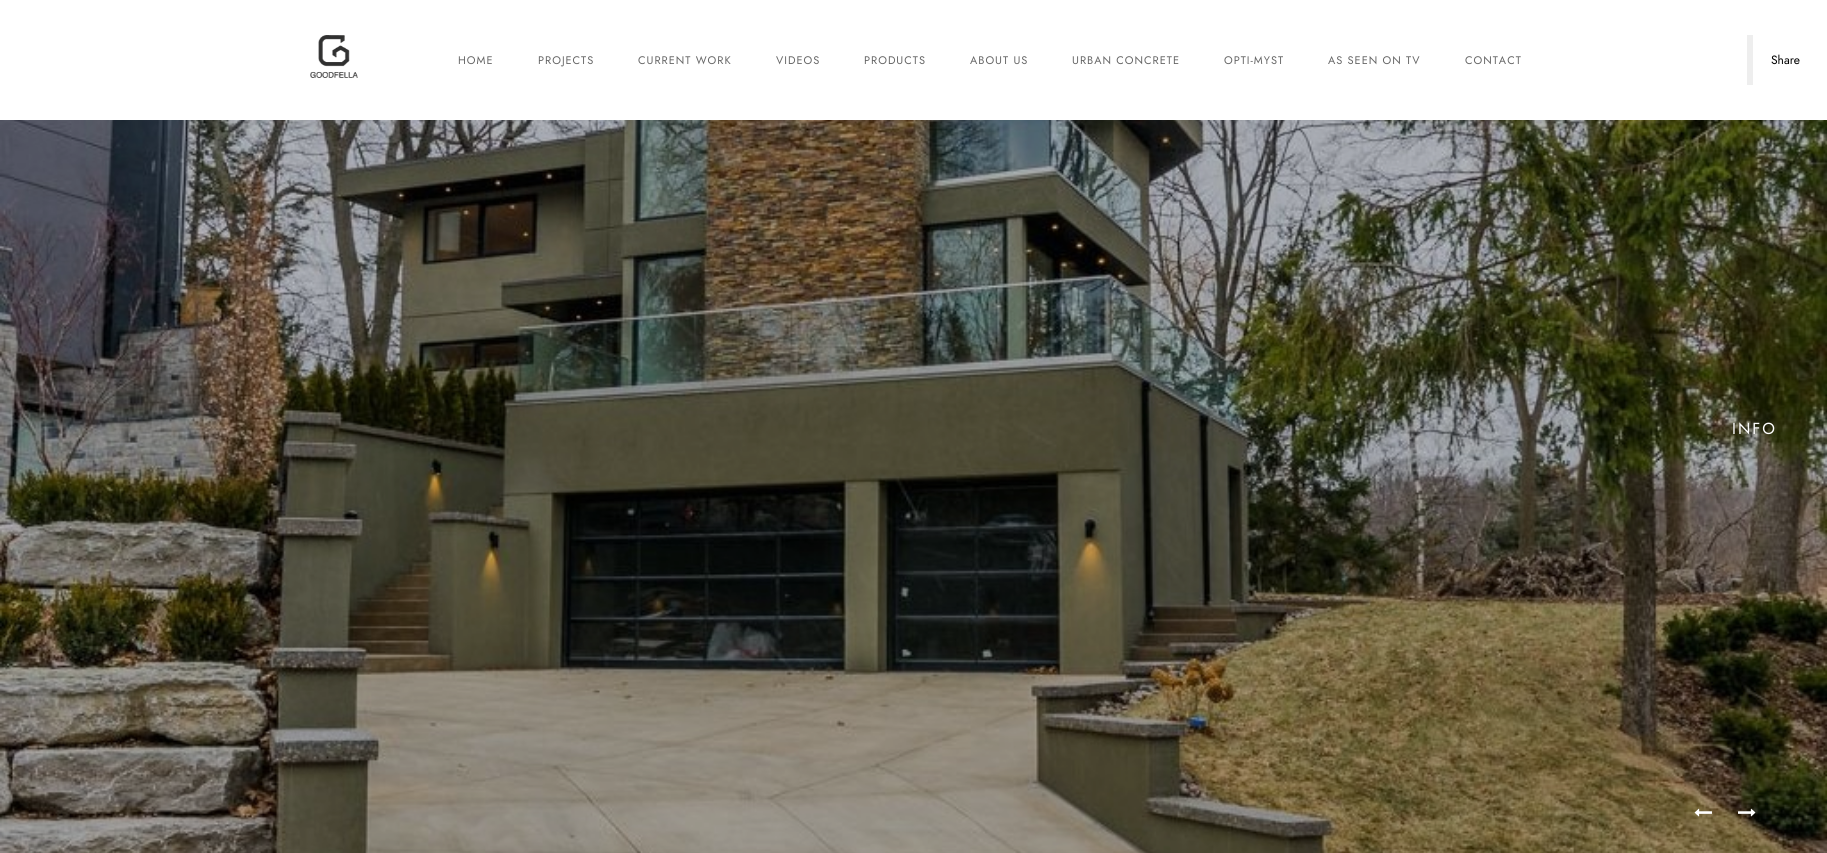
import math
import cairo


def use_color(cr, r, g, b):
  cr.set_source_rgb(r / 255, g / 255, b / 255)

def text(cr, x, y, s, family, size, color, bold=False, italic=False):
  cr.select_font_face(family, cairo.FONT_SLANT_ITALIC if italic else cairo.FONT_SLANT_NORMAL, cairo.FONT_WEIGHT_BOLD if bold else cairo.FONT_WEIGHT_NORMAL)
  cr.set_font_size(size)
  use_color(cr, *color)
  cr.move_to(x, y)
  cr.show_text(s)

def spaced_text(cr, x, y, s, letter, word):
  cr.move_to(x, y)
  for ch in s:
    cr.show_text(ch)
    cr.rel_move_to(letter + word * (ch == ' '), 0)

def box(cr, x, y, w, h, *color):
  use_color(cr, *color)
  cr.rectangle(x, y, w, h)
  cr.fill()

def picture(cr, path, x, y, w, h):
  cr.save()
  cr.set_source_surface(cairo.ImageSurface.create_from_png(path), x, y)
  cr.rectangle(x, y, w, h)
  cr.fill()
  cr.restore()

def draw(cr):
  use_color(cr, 255, 255, 255)
  cr.paint()
  picture(cr, "img_01.png", 310, 35, 48, 43)
  box(cr, 1747, 35, 6, 50, 238, 238, 238)
  picture(cr, "img_02.png", 0, 120, 1827, 733)
  picture(cr, "img_03.png", 1694, 808, 18, 9)
  picture(cr, "img_04.png", 1738, 808, 18, 9)
  cr.select_font_face("Jost")
  cr.set_font_size(11)
  use_color(cr, 102, 102, 102)
  spaced_text(cr, 458, 64, "HOME", 1, 0)
  spaced_text(cr, 538, 64, "PROJECTS", 1, 0)
  spaced_text(cr, 638, 64, "CURRENT WORK", 1, 0)
  spaced_text(cr, 776, 64, "VIDEOS", 1, 0)
  spaced_text(cr, 864, 64, "PRODUCTS", 1, 0)
  spaced_text(cr, 970, 64, "ABOUT US", 1, 0)
  spaced_text(cr, 1072, 64, "URBAN CONCRETE", 1, 0)
  spaced_text(cr, 1224, 64, "OPTI-MYST", 1, 0)
  spaced_text(cr, 1328, 64, "AS SEEN ON TV", 1, 0)
  spaced_text(cr, 1465, 64, "CONTACT", 1, 0)
  text(cr, 1771, 64, "Share", "Jost", 12, (0, 0, 0))
  cr.set_font_size(16)
  use_color(cr, 255, 255, 255)
  spaced_text(cr, 1732, 434, "INFO", 2, 0)


surface = cairo.ImageSurface(cairo.FORMAT_RGB24, 1827, 853)
cr = cairo.Context(surface)
options = cairo.FontOptions()
options.set_hint_metrics(cairo.HINT_METRICS_OFF)
options.set_hint_style(cairo.HINT_STYLE_NONE)
cr.set_font_options(options)
cr.set_miter_limit(4)
draw(cr)
surface.write_to_png("out.png")
